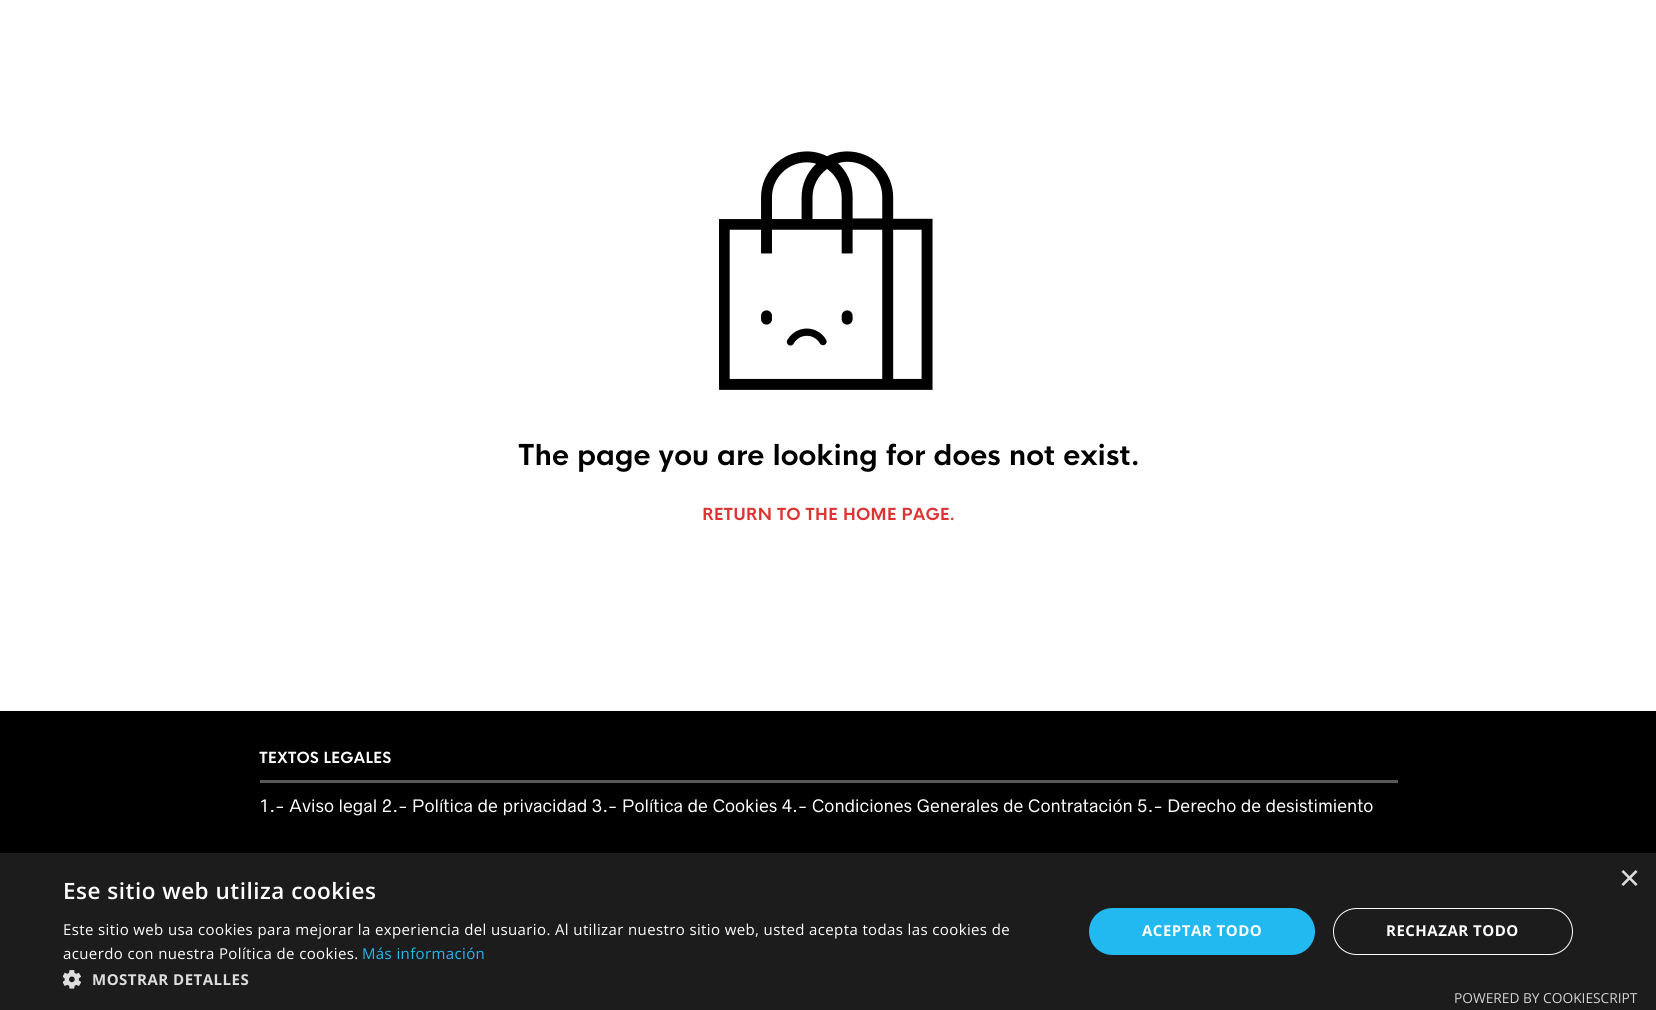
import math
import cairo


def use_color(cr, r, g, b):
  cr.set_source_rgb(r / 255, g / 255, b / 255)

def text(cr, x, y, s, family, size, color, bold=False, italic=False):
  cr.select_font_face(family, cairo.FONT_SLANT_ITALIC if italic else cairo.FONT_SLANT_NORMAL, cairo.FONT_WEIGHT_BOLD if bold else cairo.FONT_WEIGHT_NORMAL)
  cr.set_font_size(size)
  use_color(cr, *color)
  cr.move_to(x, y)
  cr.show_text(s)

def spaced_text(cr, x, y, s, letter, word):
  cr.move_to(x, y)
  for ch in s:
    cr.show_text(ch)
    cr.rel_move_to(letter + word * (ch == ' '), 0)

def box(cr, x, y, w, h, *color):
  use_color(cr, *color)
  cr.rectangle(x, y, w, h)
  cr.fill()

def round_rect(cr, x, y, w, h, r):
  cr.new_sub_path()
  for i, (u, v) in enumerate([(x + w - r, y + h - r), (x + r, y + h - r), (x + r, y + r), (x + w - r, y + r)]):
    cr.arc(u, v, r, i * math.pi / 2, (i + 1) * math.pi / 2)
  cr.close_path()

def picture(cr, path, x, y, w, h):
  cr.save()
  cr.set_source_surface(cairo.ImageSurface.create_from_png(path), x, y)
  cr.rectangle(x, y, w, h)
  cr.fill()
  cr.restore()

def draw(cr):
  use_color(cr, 255, 255, 255)
  cr.paint()
  picture(cr, "img_01.png", 719, 151, 214, 239)
  box(cr, 0, 711, 1656, 142, 0, 0, 0)
  box(cr, 260, 780, 1138, 3, 89, 89, 89)
  box(cr, 0, 853, 1656, 157, 28, 28, 28)
  picture(cr, "img_02.png", 63, 970, 18, 19)
  use_color(cr, 34, 184, 240)
  round_rect(cr, 1089, 908, 226, 47, 23.5)
  cr.fill()
  round_rect(cr, 1333.5, 908.5, 239, 46, 23)
  use_color(cr, 255, 255, 255)
  cr.set_line_width(1)
  cr.stroke()
  text(cr, 518, 465, "The page you are looking for does not exist.", "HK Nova", 28.1, (0, 0, 0), bold=True)
  text(cr, 702, 520, "RETURN TO THE HOME PAGE.", "HK Nova", 16.25, (221, 51, 51), bold=True)
  text(cr, 259, 763, "TEXTOS LEGALES", "HK Nova", 15, (255, 255, 255), bold=True)
  text(cr, 259, 812, "1.- Aviso legal 2.- Política de privacidad 3.- Política de Cookies 4.- Condiciones Generales de Contratación 5.- Derecho de desistimiento", "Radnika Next", 16.25, (255, 255, 255))
  text(cr, 1619, 890, "×", "Liberation Sans", 36, (221, 221, 221))
  cr.select_font_face("Open Sans SemiBold")
  cr.set_font_size(22.5)
  use_color(cr, 255, 255, 255)
  spaced_text(cr, 63, 899, "Ese sitio web utiliza cookies", 0.5, 0)
  cr.select_font_face("Open Sans")
  cr.set_font_size(15)
  spaced_text(cr, 63, 935, "Este sitio web usa cookies para mejorar la experiencia del usuario. Al utilizar nuestro sitio web, usted acepta todas las cookies de", 0.38, 0)
  spaced_text(cr, 63, 959, "acuerdo con nuestra Política de cookies.", 0.38, 0)
  use_color(cr, 34, 184, 240)
  spaced_text(cr, 362, 959, "Más información", 0.38, 0)
  cr.select_font_face("Open Sans", cairo.FONT_SLANT_NORMAL, cairo.FONT_WEIGHT_BOLD)
  use_color(cr, 221, 221, 221)
  spaced_text(cr, 92, 985, "MOSTRAR DETALLES", 0.5, 0)
  use_color(cr, 255, 255, 255)
  spaced_text(cr, 1142, 936, "ACEPTAR TODO", 0.5, 0)
  spaced_text(cr, 1386, 936, "RECHAZAR TODO", 0.5, 0)
  text(cr, 1454, 1003, "POWERED BY COOKIESCRIPT", "Open Sans", 13.75, (210, 210, 210))


surface = cairo.ImageSurface(cairo.FORMAT_RGB24, 1656, 1010)
cr = cairo.Context(surface)
options = cairo.FontOptions()
options.set_hint_metrics(cairo.HINT_METRICS_OFF)
options.set_hint_style(cairo.HINT_STYLE_NONE)
cr.set_font_options(options)
cr.set_miter_limit(4)
draw(cr)
surface.write_to_png("out.png")
